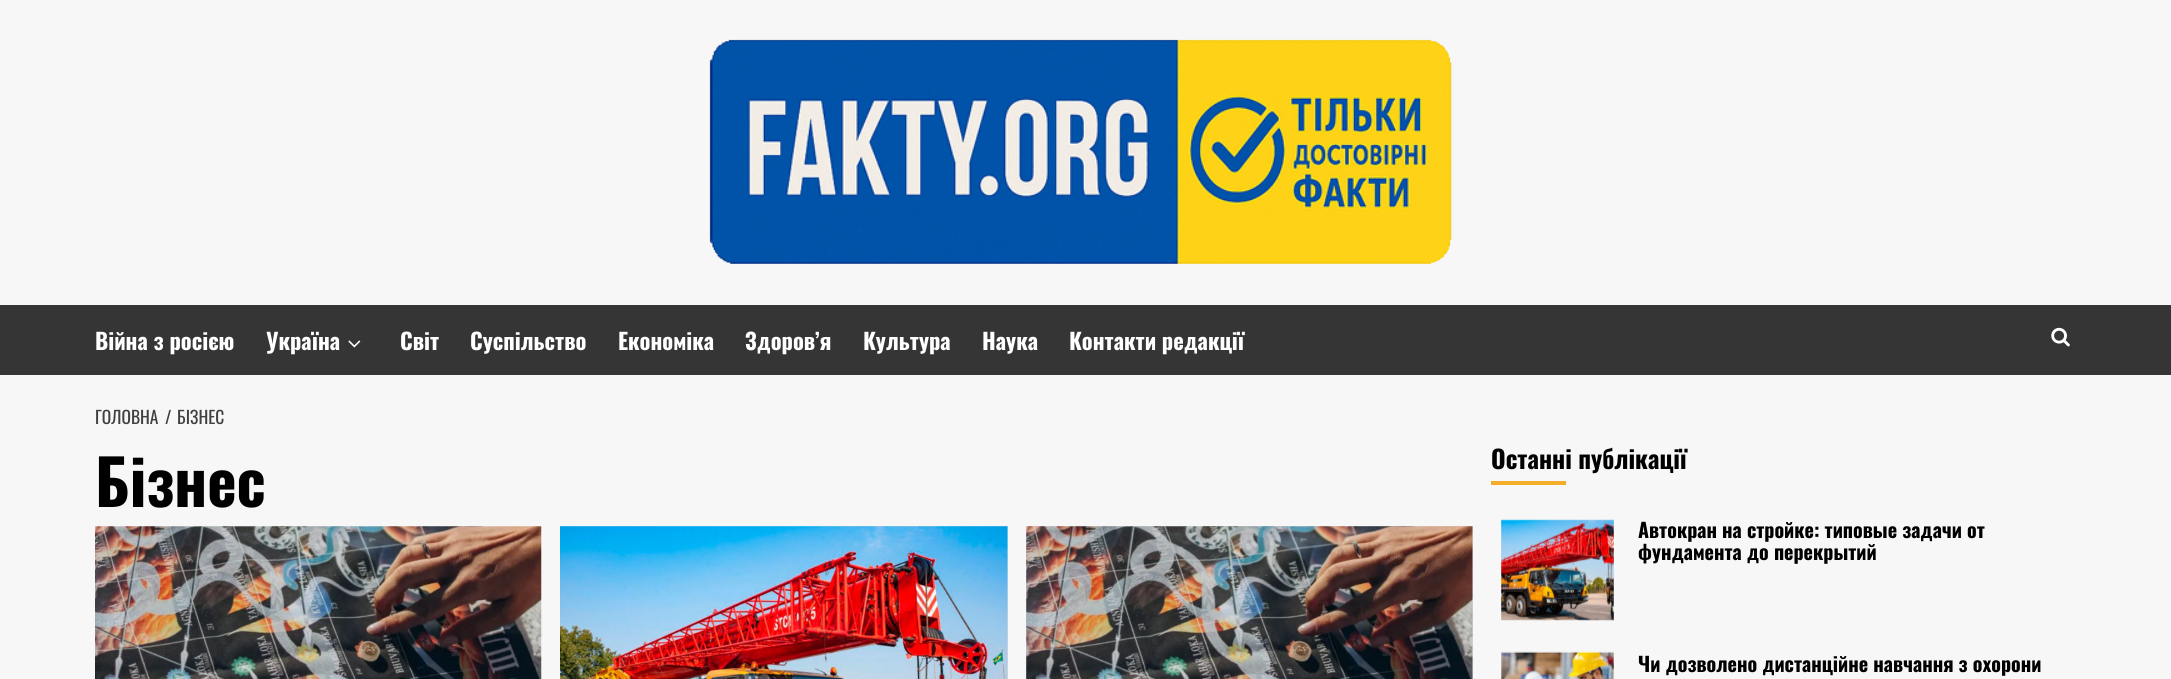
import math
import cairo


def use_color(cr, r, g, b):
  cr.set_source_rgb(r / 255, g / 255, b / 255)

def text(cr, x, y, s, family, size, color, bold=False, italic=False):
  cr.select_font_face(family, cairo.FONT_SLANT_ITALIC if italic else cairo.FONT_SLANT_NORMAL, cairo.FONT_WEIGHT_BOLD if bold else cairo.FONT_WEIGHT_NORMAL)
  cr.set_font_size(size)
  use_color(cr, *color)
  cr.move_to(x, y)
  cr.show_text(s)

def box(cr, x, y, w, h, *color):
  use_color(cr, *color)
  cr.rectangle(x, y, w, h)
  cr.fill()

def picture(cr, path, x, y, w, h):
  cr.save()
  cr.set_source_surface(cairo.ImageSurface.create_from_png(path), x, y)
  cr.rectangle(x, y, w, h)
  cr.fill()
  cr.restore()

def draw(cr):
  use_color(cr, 247, 247, 247)
  cr.paint()
  picture(cr, "img_01.png", 709, 39, 743, 225)
  box(cr, 0, 305, 2171, 70, 53, 53, 53)
  picture(cr, "img_02.png", 348, 340, 13, 8)
  picture(cr, "img_03.png", 2051, 327, 19, 20)
  picture(cr, "img_04.png", 95, 526, 447, 153)
  box(cr, 560, 526, 448, 153, 216, 216, 216)
  picture(cr, "img_05.png", 560, 526, 448, 153)
  box(cr, 1026, 526, 447, 153, 216, 216, 216)
  picture(cr, "img_06.png", 1026, 526, 447, 153)
  box(cr, 1491, 481, 75, 4, 243, 173, 41)
  box(cr, 1501, 520, 113, 100, 222, 222, 222)
  picture(cr, "img_07.png", 1501, 519, 113, 102)
  picture(cr, "img_08.png", 1501, 651, 113, 28)
  text(cr, 95, 350, "Війна з росією", "Oswald", 22.5, (255, 255, 255), bold=True)
  text(cr, 266, 350, "Україна", "Oswald", 22.5, (255, 255, 255), bold=True)
  text(cr, 400, 350, "Світ", "Oswald", 22.5, (255, 255, 255), bold=True)
  text(cr, 470, 350, "Суспільство", "Oswald", 22.5, (255, 255, 255), bold=True)
  text(cr, 618, 350, "Економіка", "Oswald", 22.5, (255, 255, 255), bold=True)
  text(cr, 745, 350, "Здоров’я", "Oswald", 22.5, (255, 255, 255), bold=True)
  text(cr, 863, 350, "Культура", "Oswald", 22.5, (255, 255, 255), bold=True)
  text(cr, 982, 350, "Наука", "Oswald", 22.5, (255, 255, 255), bold=True)
  text(cr, 1069, 350, "Контакти редакції", "Oswald", 22.5, (255, 255, 255), bold=True)
  text(cr, 95, 424, "ГОЛОВНА", "Oswald", 17.5, (64, 64, 64))
  text(cr, 165, 424, "/", "Oswald", 17.5, (64, 64, 64))
  text(cr, 177, 424, "БІЗНЕС", "Oswald", 17.5, (64, 64, 64))
  text(cr, 95, 507, "Бізнес", "Oswald", 62.5, (0, 0, 0), bold=True)
  text(cr, 1491, 469, "Останні публікації", "Oswald", 25, (0, 0, 0), bold=True)
  text(cr, 1638, 538, "Автокран на стройке: типовые задачи от", "Oswald", 20, (0, 0, 0), bold=True)
  text(cr, 1638, 560, "фундамента до перекрытий", "Oswald", 20, (0, 0, 0), bold=True)
  text(cr, 1638, 672, "Чи дозволено дистанційне навчання з охорони", "Oswald", 20, (0, 0, 0), bold=True)


surface = cairo.ImageSurface(cairo.FORMAT_RGB24, 2171, 679)
cr = cairo.Context(surface)
options = cairo.FontOptions()
options.set_hint_metrics(cairo.HINT_METRICS_OFF)
options.set_hint_style(cairo.HINT_STYLE_NONE)
cr.set_font_options(options)
cr.set_miter_limit(4)
draw(cr)
surface.write_to_png("out.png")
